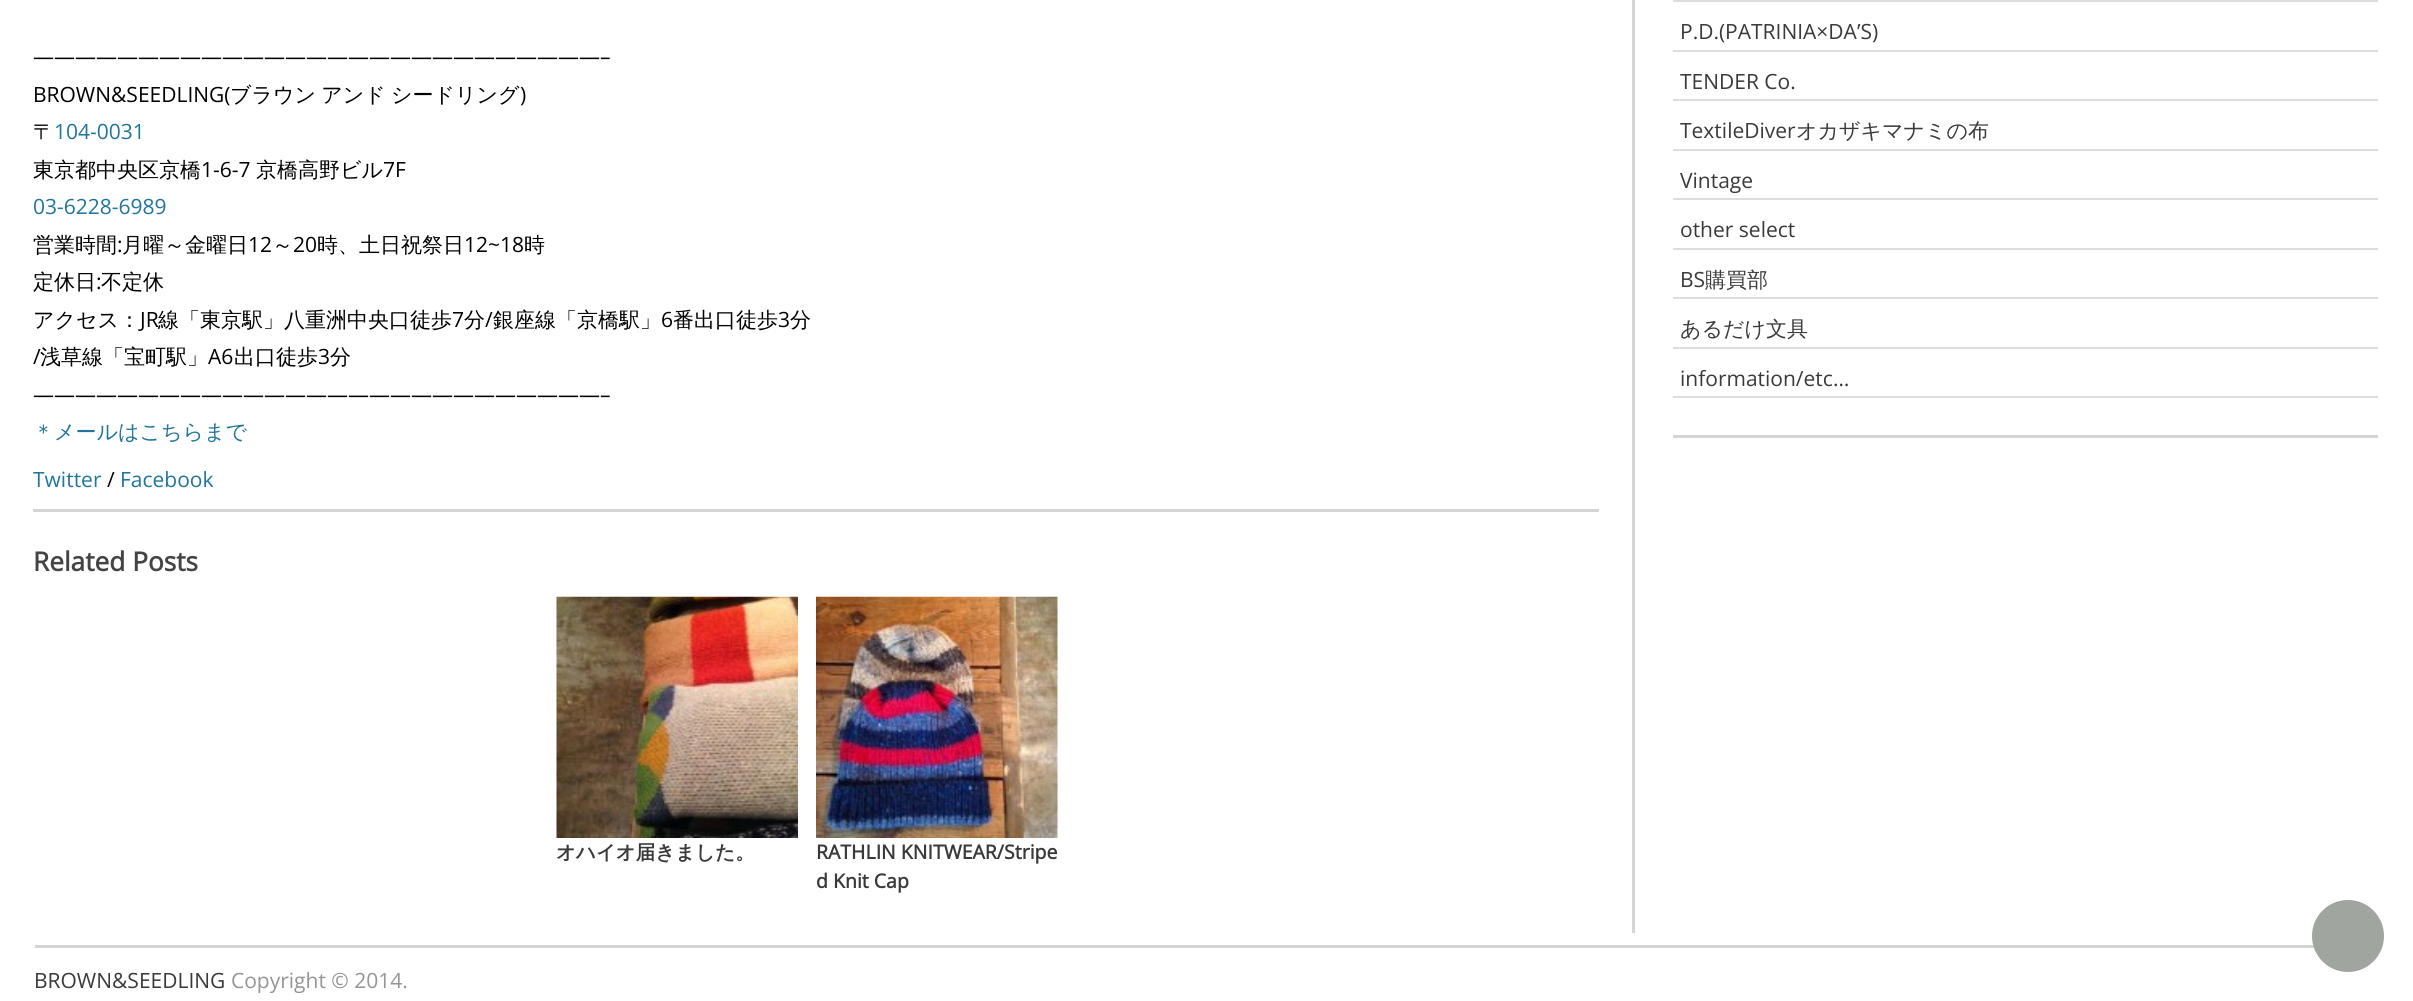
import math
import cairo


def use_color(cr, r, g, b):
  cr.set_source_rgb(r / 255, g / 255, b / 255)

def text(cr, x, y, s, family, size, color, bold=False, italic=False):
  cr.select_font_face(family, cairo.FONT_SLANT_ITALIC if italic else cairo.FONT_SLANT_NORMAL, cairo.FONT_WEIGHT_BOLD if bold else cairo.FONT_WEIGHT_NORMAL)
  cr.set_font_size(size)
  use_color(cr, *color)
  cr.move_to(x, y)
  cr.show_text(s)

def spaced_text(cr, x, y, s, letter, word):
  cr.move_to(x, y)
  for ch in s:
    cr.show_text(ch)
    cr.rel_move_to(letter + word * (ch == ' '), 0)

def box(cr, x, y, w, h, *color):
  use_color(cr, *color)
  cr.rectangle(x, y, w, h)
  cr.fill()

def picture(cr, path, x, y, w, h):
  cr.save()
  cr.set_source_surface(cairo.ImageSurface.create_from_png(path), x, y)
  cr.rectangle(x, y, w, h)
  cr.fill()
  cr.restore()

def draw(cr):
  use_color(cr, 255, 255, 255)
  cr.paint()
  box(cr, 1632, 0, 3, 933, 213, 213, 213)
  box(cr, 33, 509, 1566, 3, 213, 213, 213)
  picture(cr, "img_01.png", 556, 596, 242, 242)
  picture(cr, "img_02.png", 816, 596, 242, 242)
  box(cr, 1673, 435, 705, 3, 213, 213, 213)
  box(cr, 1673, 0, 705, 2, 221, 221, 221)
  box(cr, 1673, 50, 705, 2, 221, 221, 221)
  box(cr, 1673, 99, 705, 2, 221, 221, 221)
  box(cr, 1673, 149, 705, 2, 221, 221, 221)
  box(cr, 1673, 198, 705, 2, 221, 221, 221)
  box(cr, 1673, 248, 705, 2, 221, 221, 221)
  box(cr, 1673, 297, 705, 2, 221, 221, 221)
  box(cr, 1673, 347, 705, 2, 221, 221, 221)
  box(cr, 1673, 396, 705, 2, 221, 221, 221)
  box(cr, 35, 945, 2280, 3, 213, 213, 213)
  use_color(cr, 160, 165, 160)
  cr.arc(2348, 936, 35, 0, 2 * math.pi)
  cr.fill_preserve()
  cr.stroke()
  text(cr, 33, 64, "———————————————————————————–", "Open Sans", 21, (0, 0, 0))
  text(cr, 33, 102, "BROWN&SEEDLING(", "Open Sans", 21, (0, 0, 0))
  cr.select_font_face("WenQuanYi Zen Hei Medium")
  spaced_text(cr, 230, 102, "ブラウン アンド シードリング", 0, -1)
  text(cr, 520, 102, ")", "Open Sans", 21, (0, 0, 0))
  text(cr, 33, 139, "〒", "WenQuanYi Zen Hei Medium", 21, (0, 0, 0))
  text(cr, 54, 139, "104-0031", "Open Sans", 21, (33, 117, 155))
  text(cr, 33, 177, "東京都中央区京橋", "WenQuanYi Zen Hei Medium", 21, (0, 0, 0))
  text(cr, 201, 177, "1-6-7", "Open Sans", 21, (0, 0, 0))
  text(cr, 256, 177, "京橋高野ビル", "WenQuanYi Zen Hei Medium", 21, (0, 0, 0))
  text(cr, 383, 177, "7F", "Open Sans", 21, (0, 0, 0))
  text(cr, 33, 214, "03-6228-6989", "Open Sans", 21, (33, 117, 155))
  text(cr, 33, 252, "営業時間", "WenQuanYi Zen Hei Medium", 21, (0, 0, 0))
  text(cr, 117, 252, ":", "Open Sans", 21, (0, 0, 0))
  text(cr, 122, 252, "月曜～金曜日", "WenQuanYi Zen Hei Medium", 21, (0, 0, 0))
  text(cr, 248, 252, "12", "Open Sans", 21, (0, 0, 0))
  text(cr, 272, 252, "～", "WenQuanYi Zen Hei Medium", 21, (0, 0, 0))
  text(cr, 293, 252, "20", "Open Sans", 21, (0, 0, 0))
  text(cr, 317, 252, "時、土日祝祭日", "WenQuanYi Zen Hei Medium", 21, (0, 0, 0))
  text(cr, 464, 252, "12~18", "Open Sans", 21, (0, 0, 0))
  text(cr, 524, 252, "時", "WenQuanYi Zen Hei Medium", 21, (0, 0, 0))
  text(cr, 33, 289, "定休日", "WenQuanYi Zen Hei Medium", 21, (0, 0, 0))
  text(cr, 96, 289, ":", "Open Sans", 21, (0, 0, 0))
  text(cr, 101, 289, "不定休", "WenQuanYi Zen Hei Medium", 21, (0, 0, 0))
  text(cr, 33, 327, "アクセス：", "WenQuanYi Zen Hei Medium", 21, (0, 0, 0))
  text(cr, 140, 327, "JR", "Open Sans", 21, (0, 0, 0))
  text(cr, 158, 327, "線「東京駅」八重洲中央口徒歩", "WenQuanYi Zen Hei Medium", 21, (0, 0, 0))
  text(cr, 452, 327, "7", "Open Sans", 21, (0, 0, 0))
  text(cr, 464, 327, "分", "WenQuanYi Zen Hei Medium", 21, (0, 0, 0))
  text(cr, 485, 327, "/", "Open Sans", 21, (0, 0, 0))
  text(cr, 493, 327, "銀座線「京橋駅」", "WenQuanYi Zen Hei Medium", 21, (0, 0, 0))
  text(cr, 661, 327, "6", "Open Sans", 21, (0, 0, 0))
  text(cr, 673, 327, "番出口徒歩", "WenQuanYi Zen Hei Medium", 21, (0, 0, 0))
  text(cr, 778, 327, "3", "Open Sans", 21, (0, 0, 0))
  text(cr, 790, 327, "分", "WenQuanYi Zen Hei Medium", 21, (0, 0, 0))
  text(cr, 33, 364, "/", "Open Sans", 21, (0, 0, 0))
  text(cr, 40, 364, "浅草線「宝町駅」", "WenQuanYi Zen Hei Medium", 21, (0, 0, 0))
  text(cr, 208, 364, "A6", "Open Sans", 21, (0, 0, 0))
  text(cr, 234, 364, "出口徒歩", "WenQuanYi Zen Hei Medium", 21, (0, 0, 0))
  text(cr, 318, 364, "3", "Open Sans", 21, (0, 0, 0))
  text(cr, 330, 364, "分", "WenQuanYi Zen Hei Medium", 21, (0, 0, 0))
  text(cr, 33, 402, "———————————————————————————–", "Open Sans", 21, (0, 0, 0))
  text(cr, 33, 439, "＊メールはこちらまで", "WenQuanYi Zen Hei Medium", 21, (33, 117, 155))
  text(cr, 33, 487, "Twitter", "Open Sans", 21, (33, 117, 155))
  text(cr, 107, 487, "/", "Open Sans", 21, (0, 0, 0))
  text(cr, 120, 487, "Facebook", "Open Sans", 21, (33, 117, 155))
  text(cr, 33, 571, "Related Posts", "Open Sans", 26.25, (68, 68, 68), bold=True)
  text(cr, 556, 859, "オハイオ届きました。", "WenQuanYi Zen Hei", 19.5, (58, 58, 58), bold=True)
  text(cr, 816, 859, "RATHLIN KNITWEAR/Stripe", "Open Sans", 19.5, (58, 58, 58), bold=True)
  text(cr, 816, 888, "d Knit Cap", "Open Sans", 19.5, (58, 58, 58), bold=True)
  text(cr, 1680, 39, "P.D.(PATRINIA×DA’S)", "Open Sans", 21, (58, 58, 58))
  text(cr, 1680, 89, "TENDER Co.", "Open Sans", 21, (58, 58, 58))
  text(cr, 1680, 138, "TextileDiver", "Open Sans", 21, (58, 58, 58))
  text(cr, 1796, 138, "オカザキマナミの布", "WenQuanYi Zen Hei Medium", 21, (58, 58, 58))
  text(cr, 1680, 188, "Vintage", "Open Sans", 21, (58, 58, 58))
  text(cr, 1680, 237, "other select", "Open Sans", 21, (58, 58, 58))
  text(cr, 1680, 287, "BS", "Open Sans", 21, (58, 58, 58))
  text(cr, 1705, 287, "購買部", "WenQuanYi Zen Hei Medium", 21, (58, 58, 58))
  text(cr, 1680, 336, "あるだけ文具", "WenQuanYi Zen Hei Medium", 21, (58, 58, 58))
  text(cr, 1680, 386, "information/etc…", "Open Sans", 21, (58, 58, 58))
  text(cr, 34, 988, "BROWN&SEEDLING", "Open Sans", 21, (58, 58, 58))
  text(cr, 231, 988, "Copyright © 2014.", "Open Sans", 21, (151, 148, 148))


surface = cairo.ImageSurface(cairo.FORMAT_RGB24, 2413, 1001)
cr = cairo.Context(surface)
options = cairo.FontOptions()
options.set_hint_metrics(cairo.HINT_METRICS_OFF)
options.set_hint_style(cairo.HINT_STYLE_NONE)
cr.set_font_options(options)
cr.set_miter_limit(4)
draw(cr)
surface.write_to_png("out.png")
